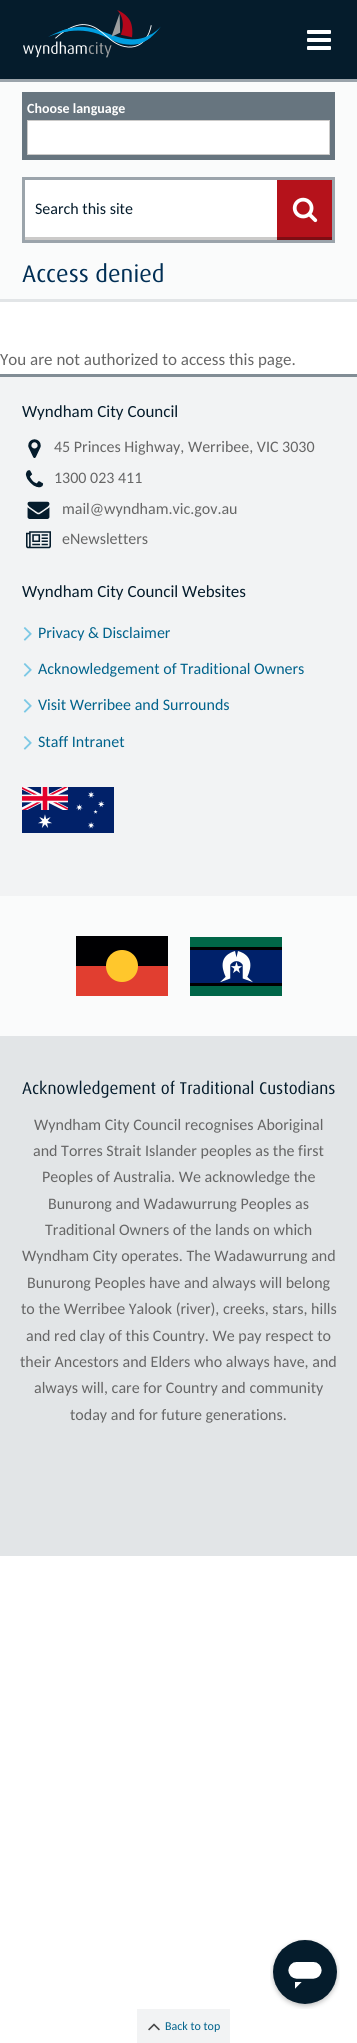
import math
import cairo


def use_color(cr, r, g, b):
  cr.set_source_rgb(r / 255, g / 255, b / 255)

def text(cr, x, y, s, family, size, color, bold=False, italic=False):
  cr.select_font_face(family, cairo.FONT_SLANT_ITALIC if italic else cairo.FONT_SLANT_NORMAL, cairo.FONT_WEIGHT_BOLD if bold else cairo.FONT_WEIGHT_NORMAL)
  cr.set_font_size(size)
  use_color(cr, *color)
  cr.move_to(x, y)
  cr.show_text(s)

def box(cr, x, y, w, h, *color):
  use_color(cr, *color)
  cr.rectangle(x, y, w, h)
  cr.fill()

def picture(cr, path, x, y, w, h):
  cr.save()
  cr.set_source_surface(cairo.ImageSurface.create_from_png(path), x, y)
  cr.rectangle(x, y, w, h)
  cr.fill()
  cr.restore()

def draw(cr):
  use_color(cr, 255, 255, 255)
  cr.paint()
  box(cr, 0, 0, 357, 79, 5, 28, 44)
  picture(cr, "img_01.png", 23, 10, 138, 48)
  picture(cr, "img_02.png", 307, 30, 24, 20)
  box(cr, 0, 79, 357, 3, 155, 164, 171)
  box(cr, 0, 82, 357, 217, 250, 251, 251)
  box(cr, 0, 299, 357, 3, 226, 229, 231)
  box(cr, 22, 92, 313, 68, 103, 117, 127)
  use_color(cr, 255, 255, 255)
  cr.rectangle(27.5, 120.5, 302, 34)
  cr.fill_preserve()
  use_color(cr, 203, 202, 201)
  cr.set_line_width(1)
  cr.stroke()
  box(cr, 22, 177, 313, 66, 155, 164, 171)
  box(cr, 25, 180, 252, 57, 255, 255, 255)
  box(cr, 25, 237, 252, 3, 203, 202, 201)
  box(cr, 277, 180, 55, 57, 181, 18, 27)
  picture(cr, "img_03.png", 292, 197, 26, 26)
  box(cr, 277, 237, 55, 3, 126, 13, 19)
  box(cr, 137, 2009, 93, 34, 242, 243, 244)
  picture(cr, "img_04.png", 148, 2023, 12, 8)
  box(cr, 0, 377, 357, 519, 242, 243, 244)
  box(cr, 0, 374, 357, 3, 130, 141, 149)
  picture(cr, "img_05.png", 28, 439, 13, 19)
  picture(cr, "img_06.png", 25, 470, 19, 18)
  picture(cr, "img_07.png", 27, 501, 23, 18)
  picture(cr, "img_08.png", 26, 531, 25, 18)
  picture(cr, "img_09.png", 23, 627, 9, 14)
  picture(cr, "img_09.png", 23, 663, 9, 14)
  picture(cr, "img_09.png", 23, 699, 9, 14)
  picture(cr, "img_09.png", 23, 736, 9, 14)
  picture(cr, "img_10.png", 22, 787, 92, 46)
  box(cr, 0, 896, 357, 140, 250, 251, 251)
  box(cr, 76, 936, 92, 30, 0, 0, 2)
  box(cr, 76, 966, 92, 30, 225, 62, 48)
  use_color(cr, 255, 199, 44)
  cr.new_path()
  cr.move_to(122, 982)
  cr.curve_to(131, 982, 138, 975, 138, 966)
  cr.curve_to(138, 957, 131, 950, 122, 950)
  cr.curve_to(113, 950, 106, 957, 106, 966)
  cr.curve_to(106, 975, 113, 982, 122, 982)
  cr.close_path()
  cr.fill()
  picture(cr, "img_11.png", 190, 937, 92, 59)
  box(cr, 0, 1036, 357, 520, 226, 229, 231)
  picture(cr, "img_12.png", 270, 1939, 70, 70)
  text(cr, 27, 113, "Choose language", "Carlito", 14, (255, 255, 255), bold=True)
  text(cr, 35, 214, "Search this site", "Carlito", 16, (5, 28, 44))
  text(cr, 22, 282, "Access denied", "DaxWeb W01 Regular", 24, (0, 46, 84))
  text(cr, 0, 365, "You are not authorized to access this page.", "Carlito", 17, (102, 102, 102))
  text(cr, 165, 2030, "Back to top", "Carlito", 12, (1, 99, 140))
  text(cr, 22, 417, "Wyndham City Council", "Carlito", 17, (5, 28, 44))
  text(cr, 54, 452, "45 Princes Highway, Werribee, VIC 3030", "Carlito", 16, (102, 102, 102))
  text(cr, 54, 483, "1300 023 411", "Carlito", 16, (102, 102, 102))
  text(cr, 62, 514, "mail@wyndham.vic.gov.au", "Carlito", 16, (102, 102, 102))
  text(cr, 62, 544, "eNewsletters", "Carlito", 16, (102, 102, 102))
  text(cr, 22, 597, "Wyndham City Council Websites", "Carlito", 17, (5, 28, 44))
  text(cr, 38, 638, "Privacy & Disclaimer", "Carlito", 16, (1, 99, 140))
  text(cr, 38, 674, "Acknowledgement of Traditional Owners", "Carlito", 16, (1, 99, 140))
  text(cr, 38, 710, "Visit Werribee and Surrounds", "Carlito", 16, (1, 99, 140))
  text(cr, 38, 747, "Staff Intranet", "Carlito", 16, (1, 99, 140))
  text(cr, 22, 1094, "Acknowledgement of Traditional Custodians", "DaxWeb W01 Regular", 17, (5, 28, 44))
  text(cr, 34, 1130, "Wyndham City Council recognises Aboriginal", "Carlito", 16, (102, 102, 102))
  text(cr, 33, 1156, "and Torres Strait Islander peoples as the first", "Carlito", 16, (102, 102, 102))
  text(cr, 42, 1182, "Peoples of Australia. We acknowledge the", "Carlito", 16, (102, 102, 102))
  text(cr, 48, 1209, "Bunurong and Wadawurrung Peoples as", "Carlito", 16, (102, 102, 102))
  text(cr, 45, 1235, "Traditional Owners of the lands on which", "Carlito", 16, (102, 102, 102))
  text(cr, 22, 1261, "Wyndham City operates. The Wadawurrung and", "Carlito", 16, (102, 102, 102))
  text(cr, 27, 1288, "Bunurong Peoples have and always will belong", "Carlito", 16, (102, 102, 102))
  text(cr, 21, 1314, "to the Werribee Yalook (river), creeks, stars, hills", "Carlito", 16, (102, 102, 102))
  text(cr, 26, 1341, "and red clay of this Country. We pay respect to", "Carlito", 16, (102, 102, 102))
  text(cr, 20, 1367, "their Ancestors and Elders who always have, and", "Carlito", 16, (102, 102, 102))
  text(cr, 34, 1393, "always will, care for Country and community", "Carlito", 16, (102, 102, 102))
  text(cr, 70, 1420, "today and for future generations.", "Carlito", 16, (102, 102, 102))


surface = cairo.ImageSurface(cairo.FORMAT_RGB24, 357, 2043)
cr = cairo.Context(surface)
options = cairo.FontOptions()
options.set_hint_metrics(cairo.HINT_METRICS_OFF)
options.set_hint_style(cairo.HINT_STYLE_NONE)
cr.set_font_options(options)
cr.set_miter_limit(4)
draw(cr)
surface.write_to_png("out.png")
